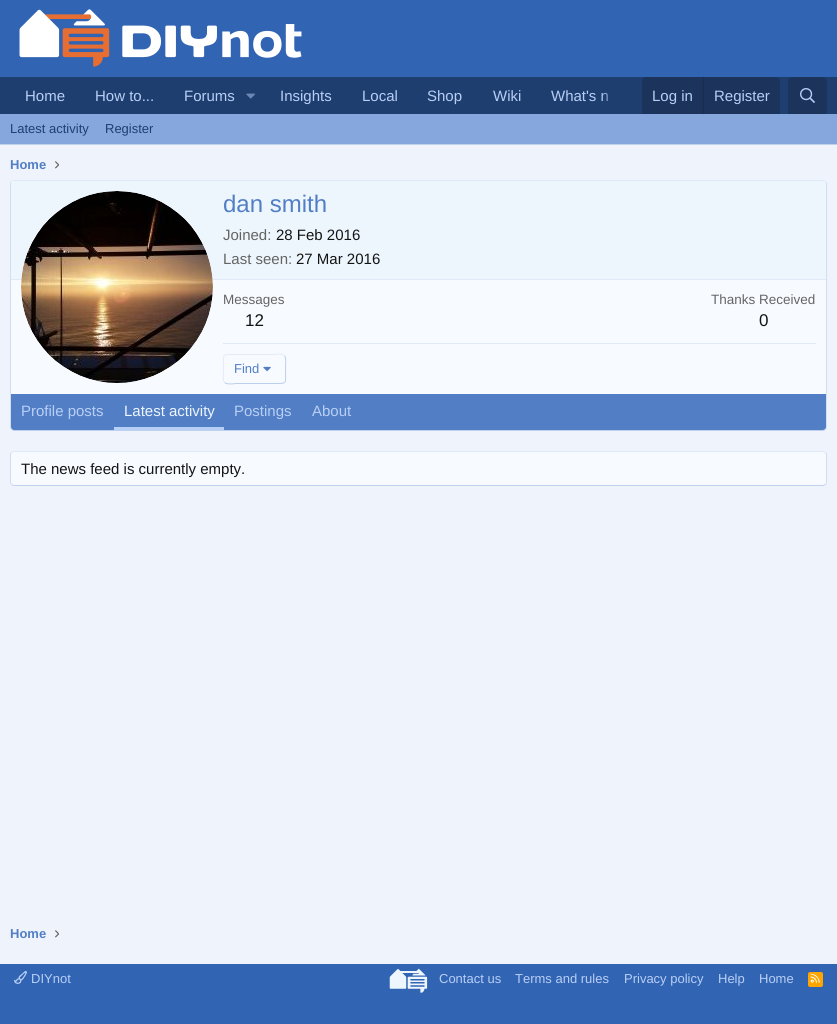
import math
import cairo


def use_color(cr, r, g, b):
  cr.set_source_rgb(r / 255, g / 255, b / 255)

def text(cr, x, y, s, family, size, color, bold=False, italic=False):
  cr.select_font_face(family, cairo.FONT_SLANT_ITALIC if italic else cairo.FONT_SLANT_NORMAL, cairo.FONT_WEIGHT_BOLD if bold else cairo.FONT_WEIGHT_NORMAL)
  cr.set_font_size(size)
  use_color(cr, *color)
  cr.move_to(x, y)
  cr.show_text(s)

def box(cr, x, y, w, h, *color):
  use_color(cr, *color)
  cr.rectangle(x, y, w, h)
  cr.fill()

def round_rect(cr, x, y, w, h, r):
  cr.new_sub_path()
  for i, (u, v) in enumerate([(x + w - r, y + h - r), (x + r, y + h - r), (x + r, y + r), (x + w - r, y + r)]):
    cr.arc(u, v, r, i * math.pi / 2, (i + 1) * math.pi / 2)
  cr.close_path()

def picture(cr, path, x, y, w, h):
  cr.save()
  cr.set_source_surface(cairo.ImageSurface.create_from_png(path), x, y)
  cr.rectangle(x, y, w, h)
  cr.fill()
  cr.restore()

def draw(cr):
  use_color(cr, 239, 243, 251)
  cr.paint()
  box(cr, 0, 0, 837, 77, 50, 100, 180)
  picture(cr, "img_01.png", 19, 9, 283, 58)
  box(cr, 0, 77, 837, 37, 31, 62, 112)
  picture(cr, "img_02.png", 246, 93, 9, 6)
  use_color(cr, 28, 52, 91)
  cr.new_path()
  cr.move_to(646, 77)
  cr.line_to(776, 77)
  cr.curve_to(778, 77, 780, 79, 780, 81)
  cr.line_to(780, 114)
  cr.line_to(642, 114)
  cr.line_to(642, 81)
  cr.curve_to(642, 79, 644, 77, 646, 77)
  cr.close_path()
  cr.fill()
  box(cr, 703, 77, 1, 37, 26, 45, 75)
  use_color(cr, 28, 52, 91)
  cr.new_path()
  cr.move_to(792, 77)
  cr.line_to(823, 77)
  cr.curve_to(825, 77, 827, 79, 827, 81)
  cr.line_to(827, 114)
  cr.line_to(788, 114)
  cr.line_to(788, 81)
  cr.curve_to(788, 79, 790, 77, 792, 77)
  cr.close_path()
  cr.fill()
  picture(cr, "img_03.png", 800, 88, 15, 15)
  box(cr, 0, 114, 837, 30, 134, 167, 221)
  box(cr, 0, 144, 837, 1, 192, 209, 238)
  picture(cr, "img_04.png", 55, 161, 4, 8)
  use_color(cr, 247, 250, 255)
  round_rect(cr, 10, 180, 817, 251, 4)
  cr.fill()
  cr.new_path()
  cr.move_to(11.5, 181.5)
  cr.line_to(14, 180.5)
  cr.line_to(823, 180.5)
  cr.line_to(825.5, 181.5)
  use_color(cr, 224, 233, 246)
  cr.set_line_width(1)
  cr.stroke()
  cr.new_path()
  cr.move_to(825.5, 181.5)
  cr.curve_to(826, 182, 826.5, 183, 826.5, 184)
  cr.line_to(826.5, 427)
  cr.curve_to(826.5, 428, 826, 429, 825.5, 429.5)
  use_color(cr, 208, 221, 242)
  cr.stroke()
  cr.new_path()
  cr.move_to(825.5, 429.5)
  cr.line_to(823, 430.5)
  cr.line_to(14, 430.5)
  cr.line_to(11.5, 429.5)
  use_color(cr, 192, 209, 238)
  cr.stroke()
  cr.new_path()
  cr.move_to(11.5, 429.5)
  cr.curve_to(11, 429, 10.5, 428, 10.5, 427)
  cr.line_to(10.5, 184)
  cr.curve_to(10.5, 183, 11, 182, 11.5, 181.5)
  use_color(cr, 208, 221, 242)
  cr.stroke()
  use_color(cr, 237, 246, 253)
  cr.new_path()
  cr.move_to(14, 181)
  cr.line_to(823, 181)
  cr.curve_to(824.5, 181, 826, 182.5, 826, 184)
  cr.line_to(826, 280)
  cr.line_to(11, 280)
  cr.line_to(11, 184)
  cr.curve_to(11, 182.5, 12.5, 181, 14, 181)
  cr.close_path()
  cr.fill()
  box(cr, 11, 279, 815, 1, 224, 233, 246)
  use_color(cr, 247, 250, 255)
  cr.arc(117, 287, 96, 0, 2 * math.pi)
  cr.fill()
  picture(cr, "img_05.png", 21, 191, 192, 192)
  box(cr, 223, 343, 593, 1, 224, 233, 246)
  cr.new_path()
  cr.move_to(284.5, 355.5)
  cr.curve_to(286.5, 357.5, 285.5, 366, 285.5, 369)
  cr.curve_to(285.5, 384.5, 288, 383.5, 273, 383.5)
  cr.line_to(236, 383.5)
  cr.curve_to(235.5, 383.5, 227, 385, 224.5, 382.5)
  use_color(cr, 188, 207, 236)
  cr.stroke()
  cr.new_path()
  cr.move_to(224.5, 382.5)
  cr.curve_to(222.5, 380.5, 223.5, 372, 223.5, 369)
  cr.curve_to(223.5, 353.5, 221, 354.5, 236, 354.5)
  cr.line_to(273, 354.5)
  cr.curve_to(273.5, 354.5, 282, 353, 284.5, 355.5)
  use_color(cr, 228, 235, 248)
  cr.stroke()
  picture(cr, "img_06.png", 263, 366, 8, 6)
  use_color(cr, 82, 126, 197)
  cr.new_path()
  cr.move_to(11, 394)
  cr.line_to(826, 394)
  cr.line_to(826, 427)
  cr.curve_to(826, 428.5, 824.5, 430, 823, 430)
  cr.line_to(14, 430)
  cr.curve_to(12.5, 430, 11, 428.5, 11, 427)
  cr.close_path()
  cr.fill()
  box(cr, 114, 427, 110, 3, 184, 207, 245)
  use_color(cr, 247, 250, 255)
  round_rect(cr, 10, 451, 817, 35, 4)
  cr.fill()
  cr.new_path()
  cr.move_to(11.5, 452.5)
  cr.line_to(14, 451.5)
  cr.line_to(823, 451.5)
  cr.line_to(825.5, 452.5)
  use_color(cr, 224, 233, 246)
  cr.stroke()
  cr.new_path()
  cr.move_to(825.5, 452.5)
  cr.curve_to(826, 453, 826.5, 454, 826.5, 455)
  cr.line_to(826.5, 482)
  cr.curve_to(826.5, 483, 826, 484, 825.5, 484.5)
  use_color(cr, 208, 221, 242)
  cr.stroke()
  cr.new_path()
  cr.move_to(825.5, 484.5)
  cr.line_to(823, 485.5)
  cr.line_to(14, 485.5)
  cr.line_to(11.5, 484.5)
  use_color(cr, 192, 209, 238)
  cr.stroke()
  cr.new_path()
  cr.move_to(11.5, 484.5)
  cr.curve_to(11, 484, 10.5, 483, 10.5, 482)
  cr.line_to(10.5, 455)
  cr.curve_to(10.5, 454, 11, 453, 11.5, 452.5)
  use_color(cr, 208, 221, 242)
  cr.stroke()
  picture(cr, "img_04.png", 55, 930, 4, 8)
  box(cr, 0, 964, 837, 60, 50, 100, 180)
  picture(cr, "img_07.png", 14, 971, 13, 13)
  picture(cr, "img_08.png", 389, 968, 39, 25)
  use_color(cr, 255, 165, 0)
  round_rect(cr, 808, 972, 15, 15, 2)
  cr.fill()
  picture(cr, "img_09.png", 810, 973, 10, 10)
  text(cr, 25, 101, "Home", "Liberation Sans", 15, (184, 207, 245))
  text(cr, 95, 101, "How to...", "Liberation Sans", 15, (184, 207, 245))
  text(cr, 184, 101, "Forums", "Liberation Sans", 15, (184, 207, 245))
  text(cr, 280, 101, "Insights", "Liberation Sans", 15, (184, 207, 245))
  text(cr, 362, 101, "Local", "Liberation Sans", 15, (184, 207, 245))
  text(cr, 427, 101, "Shop", "Liberation Sans", 15, (184, 207, 245))
  text(cr, 493, 101, "Wiki", "Liberation Sans", 15, (184, 207, 245))
  text(cr, 551, 101, "What's n", "Liberation Sans", 15, (184, 207, 245))
  gradient = cairo.LinearGradient(602, 96, 642, 96)
  gradient.add_color_stop_rgba(0, 0.122, 0.243, 0.439, 0)
  gradient.add_color_stop_rgba(0.33, 0.122, 0.243, 0.439, 1)
  cr.set_source(gradient)
  cr.rectangle(602, 93, 6, 8)
  cr.fill()
  text(cr, 652, 101, "Log in", "Liberation Sans", 15, (184, 207, 245))
  text(cr, 714, 101, "Register", "Liberation Sans", 15, (184, 207, 245))
  text(cr, 10, 133, "Latest activity", "Liberation Sans", 13, (31, 62, 112))
  text(cr, 105, 133, "Register", "Liberation Sans", 13, (31, 62, 112))
  text(cr, 10, 169, "Home", "Liberation Sans", 13, (82, 126, 197), bold=True)
  text(cr, 223, 212, "dan smith", "Liberation Sans", 24, (82, 126, 197))
  text(cr, 223, 240, "Joined:", "Liberation Sans", 15, (100, 100, 100))
  text(cr, 276, 240, "28 Feb 2016", "Liberation Sans", 15, (20, 20, 20))
  text(cr, 223, 264, "Last seen:", "Liberation Sans", 15, (100, 100, 100))
  text(cr, 296, 264, "27 Mar 2016", "Liberation Sans", 15, (20, 20, 20))
  text(cr, 223, 304, "Messages", "Liberation Sans", 13.5, (100, 100, 100))
  text(cr, 245, 326, "12", "Liberation Sans", 17, (20, 20, 20))
  text(cr, 711, 304, "Thanks Received", "Liberation Sans", 13.5, (100, 100, 100))
  text(cr, 759, 326, "0", "Liberation Sans", 17, (20, 20, 20))
  text(cr, 234, 373, "Find", "Liberation Sans", 13, (82, 126, 197))
  text(cr, 21, 416, "Profile posts", "Liberation Sans", 15, (184, 207, 245))
  text(cr, 124, 416, "Latest activity", "Liberation Sans", 15, (237, 246, 253))
  text(cr, 234, 416, "Postings", "Liberation Sans", 15, (184, 207, 245))
  text(cr, 312, 416, "About", "Liberation Sans", 15, (184, 207, 245))
  text(cr, 21, 474, "The news feed is currently empty.", "Liberation Sans", 15, (20, 20, 20))
  text(cr, 10, 938, "Home", "Liberation Sans", 13, (82, 126, 197), bold=True)
  text(cr, 31, 983, "DIYnot", "Liberation Sans", 13, (184, 207, 245))
  text(cr, 439, 983, "Contact us", "Liberation Sans", 13, (184, 207, 245))
  text(cr, 515, 983, "Terms and rules", "Liberation Sans", 13, (184, 207, 245))
  text(cr, 624, 983, "Privacy policy", "Liberation Sans", 13, (184, 207, 245))
  text(cr, 718, 983, "Help", "Liberation Sans", 13, (184, 207, 245))
  text(cr, 759, 983, "Home", "Liberation Sans", 13, (184, 207, 245))


surface = cairo.ImageSurface(cairo.FORMAT_RGB24, 837, 1024)
cr = cairo.Context(surface)
options = cairo.FontOptions()
options.set_hint_metrics(cairo.HINT_METRICS_OFF)
options.set_hint_style(cairo.HINT_STYLE_NONE)
cr.set_font_options(options)
cr.set_miter_limit(4)
draw(cr)
surface.write_to_png("out.png")
